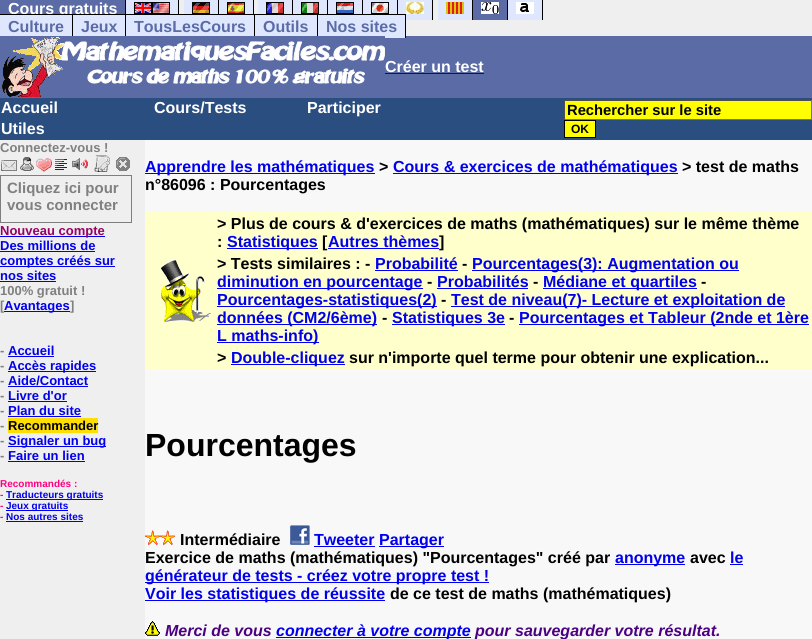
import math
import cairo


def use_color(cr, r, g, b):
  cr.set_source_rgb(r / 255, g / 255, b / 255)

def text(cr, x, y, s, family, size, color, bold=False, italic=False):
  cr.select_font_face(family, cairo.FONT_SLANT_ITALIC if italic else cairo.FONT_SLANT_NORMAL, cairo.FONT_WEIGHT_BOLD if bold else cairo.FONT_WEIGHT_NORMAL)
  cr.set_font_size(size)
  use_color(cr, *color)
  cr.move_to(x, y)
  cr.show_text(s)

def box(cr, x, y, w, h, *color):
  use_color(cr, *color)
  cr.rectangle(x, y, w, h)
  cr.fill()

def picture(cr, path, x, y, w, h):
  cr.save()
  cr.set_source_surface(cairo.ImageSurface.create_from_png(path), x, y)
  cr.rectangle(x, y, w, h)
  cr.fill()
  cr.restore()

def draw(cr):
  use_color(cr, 239, 239, 239)
  cr.paint()
  box(cr, 0, 0, 125, 14, 90, 107, 165)
  box(cr, 125, 0, 1, 20, 0, 0, 0)
  box(cr, 126, 0, 52, 14, 223, 231, 255)
  box(cr, 178, 0, 1, 17, 0, 0, 0)
  box(cr, 184, 0, 34, 14, 223, 231, 255)
  box(cr, 218, 0, 1, 20, 0, 0, 0)
  box(cr, 219, 0, 34, 14, 223, 231, 255)
  box(cr, 253, 0, 1, 20, 0, 0, 0)
  box(cr, 258, 0, 34, 14, 223, 231, 255)
  box(cr, 292, 0, 1, 20, 0, 0, 0)
  box(cr, 293, 0, 34, 14, 223, 231, 255)
  box(cr, 327, 0, 1, 20, 0, 0, 0)
  box(cr, 328, 0, 34, 14, 223, 231, 255)
  box(cr, 362, 0, 1, 20, 0, 0, 0)
  box(cr, 363, 0, 34, 14, 223, 231, 255)
  box(cr, 397, 0, 1, 20, 0, 0, 0)
  box(cr, 398, 0, 34, 20, 223, 231, 255)
  box(cr, 432, 0, 1, 20, 0, 0, 0)
  box(cr, 438, 0, 34, 20, 223, 231, 255)
  box(cr, 472, 0, 1, 20, 0, 0, 0)
  box(cr, 473, 0, 34, 20, 90, 107, 165)
  box(cr, 507, 0, 1, 20, 0, 0, 0)
  box(cr, 508, 0, 34, 20, 223, 231, 255)
  box(cr, 542, 0, 1, 20, 0, 0, 0)
  picture(cr, "img_01.png", 134, 2, 18, 12)
  picture(cr, "img_02.png", 152, 2, 18, 12)
  picture(cr, "img_03.png", 192, 2, 18, 12)
  picture(cr, "img_04.png", 227, 2, 18, 12)
  picture(cr, "img_05.png", 266, 2, 18, 12)
  picture(cr, "img_06.png", 301, 2, 18, 12)
  picture(cr, "img_07.png", 336, 2, 18, 12)
  picture(cr, "img_08.png", 371, 2, 18, 12)
  picture(cr, "img_09.png", 406, 2, 18, 12)
  picture(cr, "img_10.png", 446, 2, 18, 12)
  picture(cr, "img_11.png", 481, 2, 18, 12)
  picture(cr, "img_12.png", 516, 2, 18, 12)
  box(cr, 126, 15, 128, 21, 223, 231, 255)
  box(cr, 255, 15, 62, 21, 223, 231, 255)
  box(cr, 0, 36, 812, 62, 90, 107, 165)
  box(cr, 318, 15, 87, 23, 223, 231, 255)
  box(cr, 385, 73, 99, 1, 0, 0, 238)
  box(cr, 0, 98, 812, 42, 43, 78, 128)
  box(cr, 565, 101, 246, 18, 255, 255, 0)
  box(cr, 564, 100, 248, 1, 79, 79, 79)
  box(cr, 811, 100, 1, 20, 118, 118, 118)
  box(cr, 564, 119, 248, 1, 118, 118, 118)
  box(cr, 564, 100, 1, 20, 79, 79, 79)
  use_color(cr, 255, 255, 0)
  cr.rectangle(564.5, 120.5, 31, 17)
  cr.fill_preserve()
  use_color(cr, 0, 0, 0)
  cr.set_line_width(1)
  cr.stroke()
  picture(cr, "img_14.png", 1, 155, 129, 17)
  cr.rectangle(0.5, 175.5, 131, 47)
  use_color(cr, 127, 125, 128)
  cr.stroke()
  box(cr, 0, 236, 105, 1, 0, 0, 238)
  box(cr, 0, 251, 95, 1, 0, 0, 238)
  box(cr, 0, 266, 115, 1, 0, 0, 238)
  box(cr, 0, 281, 56, 1, 0, 0, 238)
  box(cr, 8, 356, 46, 1, 0, 0, 238)
  box(cr, 8, 371, 88, 1, 0, 0, 238)
  box(cr, 8, 386, 80, 1, 0, 0, 238)
  box(cr, 8, 401, 59, 1, 0, 0, 238)
  box(cr, 8, 416, 73, 1, 0, 0, 238)
  box(cr, 8, 418, 90, 15, 255, 222, 2)
  box(cr, 8, 446, 98, 1, 0, 0, 238)
  box(cr, 8, 461, 77, 1, 0, 0, 238)
  box(cr, 6, 499, 97, 1, 0, 0, 238)
  box(cr, 6, 510, 62, 1, 0, 0, 238)
  box(cr, 6, 521, 77, 1, 0, 0, 238)
  box(cr, 145, 140, 667, 499, 248, 248, 248)
  box(cr, 145, 173, 230, 1, 0, 0, 238)
  box(cr, 393, 173, 285, 1, 0, 0, 238)
  box(cr, 145, 212, 667, 158, 255, 255, 204)
  box(cr, 227, 248, 91, 1, 0, 0, 238)
  box(cr, 328, 248, 111, 1, 0, 0, 238)
  picture(cr, "img_15.png", 161, 260, 50, 62)
  box(cr, 375, 270, 83, 1, 0, 0, 238)
  box(cr, 472, 270, 267, 1, 0, 0, 238)
  box(cr, 217, 288, 206, 1, 0, 0, 238)
  box(cr, 437, 288, 91, 1, 0, 0, 238)
  box(cr, 543, 288, 154, 1, 0, 0, 238)
  box(cr, 217, 306, 220, 1, 0, 0, 238)
  box(cr, 451, 306, 334, 1, 0, 0, 238)
  box(cr, 217, 324, 160, 1, 0, 0, 238)
  box(cr, 392, 324, 113, 1, 0, 0, 238)
  box(cr, 519, 324, 290, 1, 0, 0, 238)
  box(cr, 217, 342, 102, 1, 0, 0, 238)
  box(cr, 231, 364, 114, 1, 0, 0, 238)
  picture(cr, "img_16.png", 145, 530, 15, 15)
  picture(cr, "img_16.png", 160, 530, 15, 15)
  picture(cr, "img_17.png", 290, 525, 20, 20)
  box(cr, 314, 546, 61, 1, 0, 0, 238)
  box(cr, 379, 546, 65, 1, 0, 0, 238)
  box(cr, 615, 564, 70, 1, 0, 0, 238)
  box(cr, 730, 564, 13, 1, 0, 0, 238)
  box(cr, 145, 582, 344, 1, 0, 0, 238)
  box(cr, 145, 600, 240, 1, 0, 0, 238)
  picture(cr, "img_18.png", 145, 621, 15, 15)
  box(cr, 276, 637, 195, 1, 0, 0, 238)
  text(cr, 8, 14, "Cours gratuits", "Liberation Sans", 16, (255, 255, 255), bold=True)
  box(cr, 0, 15, 72, 21, 223, 231, 255)
  text(cr, 8, 32, "Culture", "Liberation Sans", 16, (90, 107, 165), bold=True)
  box(cr, 0, 14, 406, 1, 0, 0, 0)
  box(cr, 72, 14, 1, 24, 0, 0, 0)
  box(cr, 73, 15, 52, 21, 223, 231, 255)
  text(cr, 81, 32, "Jeux", "Liberation Sans", 16, (90, 107, 165), bold=True)
  box(cr, 125, 14, 1, 24, 0, 0, 0)
  text(cr, 134, 32, "TousLesCours", "Liberation Sans", 16, (90, 107, 165), bold=True)
  box(cr, 254, 14, 1, 24, 0, 0, 0)
  text(cr, 263, 32, "Outils", "Liberation Sans", 16, (90, 107, 165), bold=True)
  box(cr, 317, 14, 1, 24, 0, 0, 0)
  text(cr, 326, 32, "Nos sites", "Liberation Sans", 16, (90, 107, 165), bold=True)
  box(cr, 405, 14, 1, 24, 0, 0, 0)
  picture(cr, "img_13.png", 0, 36, 385, 61)
  text(cr, 385, 72, "Créer un test", "Liberation Sans", 16, (255, 255, 255), bold=True)
  text(cr, 1, 113, "Accueil", "Liberation Sans", 16, (255, 255, 255), bold=True)
  text(cr, 154, 113, "Cours/Tests", "Liberation Sans", 16, (255, 255, 255), bold=True)
  text(cr, 307, 113, "Participer", "Liberation Sans", 16, (255, 255, 255), bold=True)
  text(cr, 1, 134, "Utiles", "Liberation Sans", 16, (255, 255, 255), bold=True)
  text(cr, 567, 115, "Rechercher sur le site", "Liberation Sans", 14.75, (0, 0, 0), bold=True)
  text(cr, 571, 133, "OK", "Liberation Sans", 12, (0, 0, 0), bold=True)
  text(cr, 0, 152, "Connectez-vous !", "Liberation Sans", 13, (128, 128, 128), bold=True)
  text(cr, 7, 193, "Cliquez ici pour", "Liberation Sans", 15, (128, 128, 128), bold=True)
  text(cr, 7, 210, "vous connecter", "Liberation Sans", 15, (128, 128, 128), bold=True)
  text(cr, 0, 235, "Nouveau compte", "Liberation Sans", 13, (153, 0, 102), bold=True)
  text(cr, 0, 250, "Des millions de", "Liberation Sans", 13, (0, 0, 238), bold=True)
  text(cr, 0, 265, "comptes créés sur", "Liberation Sans", 13, (0, 0, 238), bold=True)
  text(cr, 0, 280, "nos sites", "Liberation Sans", 13, (0, 0, 238), bold=True)
  text(cr, 0, 295, "100% gratuit !", "Liberation Sans", 13, (128, 128, 128), bold=True)
  text(cr, 0, 310, "[", "Liberation Sans", 13, (128, 128, 128), bold=True)
  box(cr, 4, 311, 66, 1, 0, 0, 238)
  text(cr, 4, 310, "Avantages", "Liberation Sans", 13, (0, 0, 238), bold=True)
  text(cr, 70, 310, "]", "Liberation Sans", 13, (128, 128, 128), bold=True)
  text(cr, 0, 355, "-", "Liberation Sans", 13, (128, 128, 128), bold=True)
  text(cr, 8, 355, "Accueil", "Liberation Sans", 13, (0, 0, 238), bold=True)
  text(cr, 0, 370, "-", "Liberation Sans", 13, (128, 128, 128), bold=True)
  text(cr, 8, 370, "Accès rapides", "Liberation Sans", 13, (0, 0, 238), bold=True)
  text(cr, 0, 385, "-", "Liberation Sans", 13, (128, 128, 128), bold=True)
  text(cr, 8, 385, "Aide/Contact", "Liberation Sans", 13, (0, 0, 238), bold=True)
  text(cr, 0, 400, "-", "Liberation Sans", 13, (128, 128, 128), bold=True)
  text(cr, 8, 400, "Livre d'or", "Liberation Sans", 13, (0, 0, 238), bold=True)
  text(cr, 0, 415, "-", "Liberation Sans", 13, (128, 128, 128), bold=True)
  text(cr, 8, 415, "Plan du site", "Liberation Sans", 13, (0, 0, 238), bold=True)
  text(cr, 0, 430, "-", "Liberation Sans", 13, (128, 128, 128), bold=True)
  text(cr, 8, 430, "Recommander", "Liberation Sans", 13, (0, 0, 0), bold=True)
  text(cr, 0, 445, "-", "Liberation Sans", 13, (128, 128, 128), bold=True)
  text(cr, 8, 445, "Signaler un bug", "Liberation Sans", 13, (0, 0, 238), bold=True)
  text(cr, 0, 460, "-", "Liberation Sans", 13, (128, 128, 128), bold=True)
  text(cr, 8, 460, "Faire un lien", "Liberation Sans", 13, (0, 0, 238), bold=True)
  text(cr, 0, 487, "Recommandés :", "Liberation Sans", 10, (255, 0, 128), bold=True)
  text(cr, 0, 498, "-", "Liberation Sans", 10, (255, 0, 128), bold=True)
  text(cr, 6, 498, "Traducteurs gratuits", "Liberation Sans", 10, (0, 0, 238), bold=True)
  text(cr, 0, 509, "-", "Liberation Sans", 10, (255, 0, 128), bold=True)
  text(cr, 6, 509, "Jeux gratuits", "Liberation Sans", 10, (0, 0, 238), bold=True)
  text(cr, 0, 520, "-", "Liberation Sans", 10, (255, 0, 128), bold=True)
  text(cr, 6, 520, "Nos autres sites", "Liberation Sans", 10, (0, 0, 238), bold=True)
  text(cr, 145, 172, "Apprendre les mathématiques", "Liberation Sans", 16, (0, 0, 238), bold=True)
  text(cr, 379, 172, ">", "Liberation Sans", 16, (0, 0, 0), bold=True)
  text(cr, 393, 172, "Cours & exercices de mathématiques", "Liberation Sans", 16, (0, 0, 238), bold=True)
  text(cr, 682, 172, "> test de maths", "Liberation Sans", 16, (0, 0, 0), bold=True)
  text(cr, 145, 190, "n°86096 : Pourcentages", "Liberation Sans", 16, (0, 0, 0), bold=True)
  text(cr, 217, 229, "> Plus de cours & d'exercices de maths (mathématiques) sur le même thème", "Liberation Sans", 16, (0, 0, 0), bold=True)
  text(cr, 217, 247, ":", "Liberation Sans", 16, (0, 0, 0), bold=True)
  text(cr, 227, 247, "Statistiques", "Liberation Sans", 16, (0, 0, 238), bold=True)
  text(cr, 322, 247, "[", "Liberation Sans", 16, (0, 0, 0), bold=True)
  text(cr, 328, 247, "Autres thèmes", "Liberation Sans", 16, (0, 0, 238), bold=True)
  text(cr, 439, 247, "]", "Liberation Sans", 16, (0, 0, 0), bold=True)
  text(cr, 217, 269, "> Tests similaires : -", "Liberation Sans", 16, (0, 0, 0), bold=True)
  text(cr, 375, 269, "Probabilité", "Liberation Sans", 16, (0, 0, 238), bold=True)
  text(cr, 462, 269, "-", "Liberation Sans", 16, (0, 0, 0), bold=True)
  text(cr, 472, 269, "Pourcentages(3): Augmentation ou", "Liberation Sans", 16, (0, 0, 238), bold=True)
  text(cr, 217, 287, "diminution en pourcentage", "Liberation Sans", 16, (0, 0, 238), bold=True)
  text(cr, 427, 287, "-", "Liberation Sans", 16, (0, 0, 0), bold=True)
  text(cr, 437, 287, "Probabilités", "Liberation Sans", 16, (0, 0, 238), bold=True)
  text(cr, 533, 287, "-", "Liberation Sans", 16, (0, 0, 0), bold=True)
  text(cr, 543, 287, "Médiane et quartiles", "Liberation Sans", 16, (0, 0, 238), bold=True)
  text(cr, 701, 287, "-", "Liberation Sans", 16, (0, 0, 0), bold=True)
  text(cr, 217, 305, "Pourcentages-statistiques(2)", "Liberation Sans", 16, (0, 0, 238), bold=True)
  text(cr, 441, 305, "-", "Liberation Sans", 16, (0, 0, 0), bold=True)
  text(cr, 451, 305, "Test de niveau(7)- Lecture et exploitation de", "Liberation Sans", 16, (0, 0, 238), bold=True)
  text(cr, 217, 323, "données (CM2/6ème)", "Liberation Sans", 16, (0, 0, 238), bold=True)
  text(cr, 382, 323, "-", "Liberation Sans", 16, (0, 0, 0), bold=True)
  text(cr, 392, 323, "Statistiques 3e", "Liberation Sans", 16, (0, 0, 238), bold=True)
  text(cr, 509, 323, "-", "Liberation Sans", 16, (0, 0, 0), bold=True)
  text(cr, 519, 323, "Pourcentages et Tableur (2nde et 1ère", "Liberation Sans", 16, (0, 0, 238), bold=True)
  text(cr, 217, 341, "L maths-info)", "Liberation Sans", 16, (0, 0, 238), bold=True)
  text(cr, 217, 363, ">", "Liberation Sans", 16, (0, 0, 0), bold=True)
  text(cr, 231, 363, "Double-cliquez", "Liberation Sans", 16, (0, 0, 238), bold=True)
  text(cr, 349, 363, "sur n'importe quel terme pour obtenir une explication...", "Liberation Sans", 16, (0, 0, 0), bold=True)
  text(cr, 145, 456, "Pourcentages", "Liberation Sans", 32, (0, 0, 0), bold=True)
  text(cr, 180, 545, "Intermédiaire", "Liberation Sans", 16, (0, 0, 0), bold=True)
  text(cr, 314, 545, "Tweeter", "Liberation Sans", 16, (0, 0, 238), bold=True)
  text(cr, 379, 545, "Partager", "Liberation Sans", 16, (0, 0, 238), bold=True)
  text(cr, 145, 563, "Exercice de maths (mathématiques) \"Pourcentages\" créé par", "Liberation Sans", 16, (0, 0, 0), bold=True)
  text(cr, 615, 563, "anonyme", "Liberation Sans", 16, (0, 0, 238), bold=True)
  text(cr, 690, 563, "avec", "Liberation Sans", 16, (0, 0, 0), bold=True)
  text(cr, 730, 563, "le", "Liberation Sans", 16, (0, 0, 238), bold=True)
  text(cr, 145, 581, "générateur de tests - créez votre propre test !", "Liberation Sans", 16, (0, 0, 238), bold=True)
  text(cr, 145, 599, "Voir les statistiques de réussite", "Liberation Sans", 16, (0, 0, 238), bold=True)
  text(cr, 390, 599, "de ce test de maths (mathématiques)", "Liberation Sans", 16, (0, 0, 0), bold=True)
  text(cr, 165, 636, "Merci de vous", "Liberation Sans", 16, (75, 0, 130), bold=True, italic=True)
  text(cr, 276, 636, "connecter à votre compte", "Liberation Sans", 16, (0, 0, 238), bold=True, italic=True)
  text(cr, 475, 636, "pour sauvegarder votre résultat.", "Liberation Sans", 16, (75, 0, 130), bold=True, italic=True)


surface = cairo.ImageSurface(cairo.FORMAT_RGB24, 812, 639)
cr = cairo.Context(surface)
options = cairo.FontOptions()
options.set_hint_metrics(cairo.HINT_METRICS_OFF)
options.set_hint_style(cairo.HINT_STYLE_NONE)
cr.set_font_options(options)
cr.set_miter_limit(4)
draw(cr)
surface.write_to_png("out.png")
